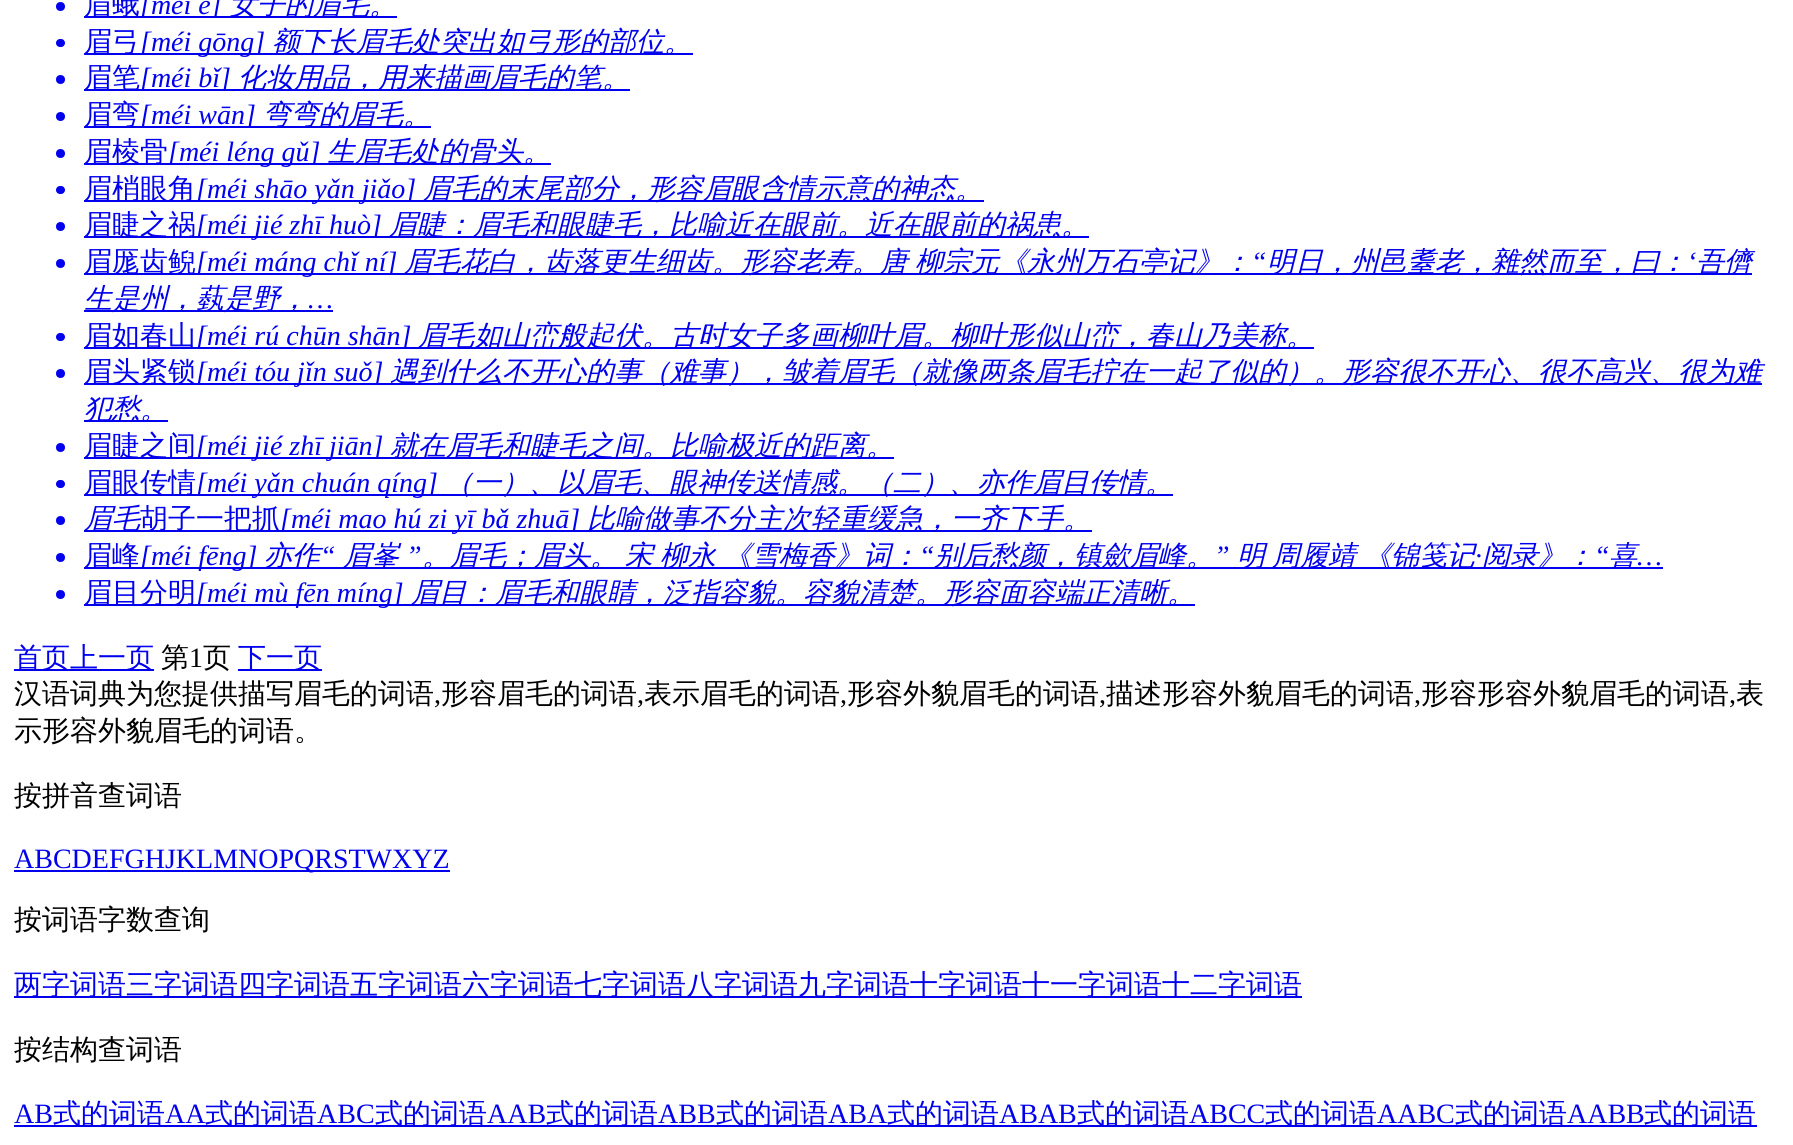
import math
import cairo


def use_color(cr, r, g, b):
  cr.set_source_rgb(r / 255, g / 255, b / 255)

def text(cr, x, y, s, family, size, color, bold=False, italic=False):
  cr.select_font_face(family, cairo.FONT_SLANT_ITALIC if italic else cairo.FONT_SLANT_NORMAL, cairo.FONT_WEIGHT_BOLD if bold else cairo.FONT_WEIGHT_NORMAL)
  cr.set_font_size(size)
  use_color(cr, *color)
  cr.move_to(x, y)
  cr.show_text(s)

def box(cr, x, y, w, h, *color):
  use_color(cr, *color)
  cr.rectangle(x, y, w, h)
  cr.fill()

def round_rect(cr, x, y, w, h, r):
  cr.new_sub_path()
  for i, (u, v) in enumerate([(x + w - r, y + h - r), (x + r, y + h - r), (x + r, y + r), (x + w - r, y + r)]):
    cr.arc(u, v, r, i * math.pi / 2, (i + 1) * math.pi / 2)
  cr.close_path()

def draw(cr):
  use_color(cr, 255, 255, 255)
  cr.paint()
  use_color(cr, 0, 0, 238)
  cr.arc(60.5, 6.5, 4.5, 0, 2 * math.pi)
  cr.fill()
  box(cr, 84, 16, 313, 2, 0, 0, 238)
  round_rect(cr, 56, 39, 9, 8, 4)
  cr.fill()
  box(cr, 84, 53, 609, 2, 0, 0, 238)
  cr.arc(60.5, 79.5, 4.5, 0, 2 * math.pi)
  cr.fill()
  box(cr, 84, 89, 546, 2, 0, 0, 238)
  cr.arc(60.5, 116.5, 4.5, 0, 2 * math.pi)
  cr.fill()
  box(cr, 84, 126, 347, 2, 0, 0, 238)
  cr.arc(60.5, 153.5, 4.5, 0, 2 * math.pi)
  cr.fill()
  box(cr, 84, 163, 467, 2, 0, 0, 238)
  round_rect(cr, 56, 186, 9, 8, 4)
  cr.fill()
  box(cr, 84, 200, 900, 2, 0, 0, 238)
  cr.arc(60.5, 226.5, 4.5, 0, 2 * math.pi)
  cr.fill()
  box(cr, 84, 236, 1005, 2, 0, 0, 238)
  box(cr, 84, 273, 1668, 2, 0, 0, 238)
  cr.arc(60.5, 263.5, 4.5, 0, 2 * math.pi)
  cr.fill()
  box(cr, 84, 310, 249, 2, 0, 0, 238)
  round_rect(cr, 56, 333, 9, 8, 4)
  cr.fill()
  box(cr, 84, 347, 1230, 2, 0, 0, 238)
  cr.arc(60.5, 373.5, 4.5, 0, 2 * math.pi)
  cr.fill()
  box(cr, 84, 383, 1678, 2, 0, 0, 238)
  box(cr, 84, 420, 84, 2, 0, 0, 238)
  cr.arc(60.5, 447.5, 4.5, 0, 2 * math.pi)
  cr.fill()
  box(cr, 84, 457, 810, 2, 0, 0, 238)
  round_rect(cr, 56, 480, 9, 8, 4)
  cr.fill()
  box(cr, 84, 494, 1089, 2, 0, 0, 238)
  cr.arc(60.5, 520.5, 4.5, 0, 2 * math.pi)
  cr.fill()
  box(cr, 84, 530, 56, 2, 0, 0, 238)
  box(cr, 140, 530, 952, 2, 0, 0, 238)
  box(cr, 84, 567, 1579, 2, 0, 0, 238)
  cr.arc(60.5, 557.5, 4.5, 0, 2 * math.pi)
  cr.fill()
  cr.arc(60.5, 594.5, 4.5, 0, 2 * math.pi)
  cr.fill()
  box(cr, 84, 604, 1111, 2, 0, 0, 238)
  box(cr, 14, 669, 140, 2, 0, 0, 238)
  box(cr, 238, 669, 84, 2, 0, 0, 238)
  box(cr, 14, 870, 319, 2, 0, 0, 238)
  box(cr, 333, 870, 117, 2, 0, 0, 238)
  box(cr, 14, 996, 1288, 2, 0, 0, 238)
  box(cr, 14, 1125, 1743, 2, 0, 0, 238)
  text(cr, 84, 14, "眉蛾", "WenQuanYi Zen Hei Medium", 28, (0, 0, 238))
  text(cr, 140, 14, "[méi é]", "Liberation Serif", 28, (0, 0, 238), italic=True)
  text(cr, 229, 14, "女子的眉毛。", "WenQuanYi Zen Hei Medium", 28, (0, 0, 238), italic=True)
  text(cr, 84, 51, "眉弓", "WenQuanYi Zen Hei Medium", 28, (0, 0, 238))
  text(cr, 140, 51, "[méi gōng]", "Liberation Serif", 28, (0, 0, 238), italic=True)
  text(cr, 272, 51, "额下长眉毛处突出如弓形的部位。", "WenQuanYi Zen Hei Medium", 28, (0, 0, 238), italic=True)
  text(cr, 84, 87, "眉笔", "WenQuanYi Zen Hei Medium", 28, (0, 0, 238))
  text(cr, 140, 87, "[méi bǐ]", "Liberation Serif", 28, (0, 0, 238), italic=True)
  text(cr, 238, 87, "化妆用品，用来描画眉毛的笔。", "WenQuanYi Zen Hei Medium", 28, (0, 0, 238), italic=True)
  text(cr, 84, 124, "眉弯", "WenQuanYi Zen Hei Medium", 28, (0, 0, 238))
  text(cr, 140, 124, "[méi wān]", "Liberation Serif", 28, (0, 0, 238), italic=True)
  text(cr, 263, 124, "弯弯的眉毛。", "WenQuanYi Zen Hei Medium", 28, (0, 0, 238), italic=True)
  text(cr, 84, 161, "眉棱骨", "WenQuanYi Zen Hei Medium", 28, (0, 0, 238))
  text(cr, 168, 161, "[méi léng gǔ]", "Liberation Serif", 28, (0, 0, 238), italic=True)
  text(cr, 327, 161, "生眉毛处的骨头。", "WenQuanYi Zen Hei Medium", 28, (0, 0, 238), italic=True)
  text(cr, 84, 198, "眉梢眼角", "WenQuanYi Zen Hei Medium", 28, (0, 0, 238))
  text(cr, 196, 198, "[méi shāo yǎn jiǎo]", "Liberation Serif", 28, (0, 0, 238), italic=True)
  text(cr, 423, 198, "眉毛的末尾部分，形容眉眼含情示意的神态。", "WenQuanYi Zen Hei Medium", 28, (0, 0, 238), italic=True)
  text(cr, 84, 234, "眉睫之祸", "WenQuanYi Zen Hei Medium", 28, (0, 0, 238))
  text(cr, 196, 234, "[méi jié zhī huò]", "Liberation Serif", 28, (0, 0, 238), italic=True)
  text(cr, 389, 234, "眉睫：眉毛和眼睫毛，比喻近在眼前。近在眼前的祸患。", "WenQuanYi Zen Hei Medium", 28, (0, 0, 238), italic=True)
  text(cr, 84, 271, "眉厖齿鲵", "WenQuanYi Zen Hei Medium", 28, (0, 0, 238))
  text(cr, 196, 271, "[méi máng chǐ ní]", "Liberation Serif", 28, (0, 0, 238), italic=True)
  text(cr, 404, 271, "眉毛花白，齿落更生细齿。形容老寿。唐", "WenQuanYi Zen Hei Medium", 28, (0, 0, 238), italic=True)
  text(cr, 915, 271, "柳宗元《永州万石亭记》：", "WenQuanYi Zen Hei Medium", 28, (0, 0, 238), italic=True)
  text(cr, 1251, 271, "“", "Liberation Serif", 28, (0, 0, 238), italic=True)
  text(cr, 1267, 271, "明日，州邑耋老，雜然而至，曰：", "WenQuanYi Zen Hei Medium", 28, (0, 0, 238), italic=True)
  text(cr, 1687, 271, "‘", "Liberation Serif", 28, (0, 0, 238), italic=True)
  text(cr, 1696, 271, "吾儕", "WenQuanYi Zen Hei Medium", 28, (0, 0, 238), italic=True)
  text(cr, 84, 308, "生是州，蓺是野，", "WenQuanYi Zen Hei Medium", 28, (0, 0, 238), italic=True)
  text(cr, 308, 308, "…", "Liberation Serif", 28, (0, 0, 238), italic=True)
  text(cr, 84, 345, "眉如春山", "WenQuanYi Zen Hei Medium", 28, (0, 0, 238))
  text(cr, 196, 345, "[méi rú chūn shān]", "Liberation Serif", 28, (0, 0, 238), italic=True)
  text(cr, 418, 345, "眉毛如山峦般起伏。古时女子多画柳叶眉。柳叶形似山峦，春山乃美称。", "WenQuanYi Zen Hei Medium", 28, (0, 0, 238), italic=True)
  text(cr, 84, 381, "眉头紧锁", "WenQuanYi Zen Hei Medium", 28, (0, 0, 238))
  text(cr, 196, 381, "[méi tóu jǐn suǒ]", "Liberation Serif", 28, (0, 0, 238), italic=True)
  text(cr, 390, 381, "遇到什么不开心的事（难事），皱着眉毛（就像两条眉毛拧在一起了似的）。形容很不开心、很不高兴、很为难", "WenQuanYi Zen Hei Medium", 28, (0, 0, 238), italic=True)
  text(cr, 84, 418, "犯愁。", "WenQuanYi Zen Hei Medium", 28, (0, 0, 238), italic=True)
  text(cr, 84, 455, "眉睫之间", "WenQuanYi Zen Hei Medium", 28, (0, 0, 238))
  text(cr, 196, 455, "[méi jié zhī jiān]", "Liberation Serif", 28, (0, 0, 238), italic=True)
  text(cr, 390, 455, "就在眉毛和睫毛之间。比喻极近的距离。", "WenQuanYi Zen Hei Medium", 28, (0, 0, 238), italic=True)
  text(cr, 84, 492, "眉眼传情", "WenQuanYi Zen Hei Medium", 28, (0, 0, 238))
  text(cr, 196, 492, "[méi yǎn chuán qíng]", "Liberation Serif", 28, (0, 0, 238), italic=True)
  text(cr, 445, 492, "（一）、以眉毛、眼神传送情感。（二）、亦作眉目传情。", "WenQuanYi Zen Hei Medium", 28, (0, 0, 238), italic=True)
  text(cr, 84, 528, "眉毛", "WenQuanYi Zen Hei Medium", 28, (0, 0, 238), italic=True)
  text(cr, 140, 528, "胡子一把抓", "WenQuanYi Zen Hei Medium", 28, (0, 0, 238))
  text(cr, 280, 528, "[méi mao hú zi yī bǎ zhuā]", "Liberation Serif", 28, (0, 0, 238), italic=True)
  text(cr, 587, 528, "比喻做事不分主次轻重缓急，一齐下手。", "WenQuanYi Zen Hei Medium", 28, (0, 0, 238), italic=True)
  text(cr, 84, 565, "眉峰", "WenQuanYi Zen Hei Medium", 28, (0, 0, 238))
  text(cr, 140, 565, "[méi fēng]", "Liberation Serif", 28, (0, 0, 238), italic=True)
  text(cr, 264, 565, "亦作", "WenQuanYi Zen Hei Medium", 28, (0, 0, 238), italic=True)
  text(cr, 320, 565, "“", "Liberation Serif", 28, (0, 0, 238), italic=True)
  text(cr, 343, 565, "眉峯", "WenQuanYi Zen Hei Medium", 28, (0, 0, 238), italic=True)
  text(cr, 406, 565, "”", "Liberation Serif", 28, (0, 0, 238), italic=True)
  text(cr, 422, 565, "。眉毛；眉头。", "WenQuanYi Zen Hei Medium", 28, (0, 0, 238), italic=True)
  text(cr, 625, 565, "宋", "WenQuanYi Zen Hei Medium", 28, (0, 0, 238), italic=True)
  text(cr, 660, 565, "柳永", "WenQuanYi Zen Hei Medium", 28, (0, 0, 238), italic=True)
  text(cr, 723, 565, "《雪梅香》词：", "WenQuanYi Zen Hei Medium", 28, (0, 0, 238), italic=True)
  text(cr, 919, 565, "“", "Liberation Serif", 28, (0, 0, 238), italic=True)
  text(cr, 934, 565, "别后愁颜，镇歛眉峰。", "WenQuanYi Zen Hei Medium", 28, (0, 0, 238), italic=True)
  text(cr, 1214, 565, "”", "Liberation Serif", 28, (0, 0, 238), italic=True)
  text(cr, 1237, 565, "明", "WenQuanYi Zen Hei Medium", 28, (0, 0, 238), italic=True)
  text(cr, 1272, 565, "周履靖", "WenQuanYi Zen Hei Medium", 28, (0, 0, 238), italic=True)
  text(cr, 1363, 565, "《锦笺记", "WenQuanYi Zen Hei Medium", 28, (0, 0, 238), italic=True)
  text(cr, 1482, 565, "阅录》：", "WenQuanYi Zen Hei Medium", 28, (0, 0, 238), italic=True)
  text(cr, 1594, 565, "“", "Liberation Serif", 28, (0, 0, 238), italic=True)
  text(cr, 1609, 565, "喜", "WenQuanYi Zen Hei Medium", 28, (0, 0, 238), italic=True)
  text(cr, 1475, 565, "·", "Liberation Serif", 28, (0, 0, 238), italic=True)
  text(cr, 1637, 565, "…", "Liberation Serif", 28, (0, 0, 238), italic=True)
  text(cr, 84, 602, "眉目分明", "WenQuanYi Zen Hei Medium", 28, (0, 0, 238))
  text(cr, 196, 602, "[méi mù fēn míng]", "Liberation Serif", 28, (0, 0, 238), italic=True)
  text(cr, 411, 602, "眉目：眉毛和眼睛，泛指容貌。容貌清楚。形容面容端正清晰。", "WenQuanYi Zen Hei Medium", 28, (0, 0, 238), italic=True)
  text(cr, 14, 667, "首页上一页", "WenQuanYi Zen Hei Medium", 28, (0, 0, 238))
  text(cr, 161, 667, "第", "WenQuanYi Zen Hei Medium", 28, (0, 0, 0))
  text(cr, 189, 667, "1", "Liberation Serif", 28, (0, 0, 0))
  text(cr, 203, 667, "页", "WenQuanYi Zen Hei Medium", 28, (0, 0, 0))
  text(cr, 238, 667, "下一页", "WenQuanYi Zen Hei Medium", 28, (0, 0, 238))
  text(cr, 14, 703, "汉语词典为您提供描写眉毛的词语", "WenQuanYi Zen Hei Medium", 28, (0, 0, 0))
  text(cr, 434, 703, ",", "Liberation Serif", 28, (0, 0, 0))
  text(cr, 441, 703, "形容眉毛的词语", "WenQuanYi Zen Hei Medium", 28, (0, 0, 0))
  text(cr, 637, 703, ",", "Liberation Serif", 28, (0, 0, 0))
  text(cr, 644, 703, "表示眉毛的词语", "WenQuanYi Zen Hei Medium", 28, (0, 0, 0))
  text(cr, 840, 703, ",", "Liberation Serif", 28, (0, 0, 0))
  text(cr, 847, 703, "形容外貌眉毛的词语", "WenQuanYi Zen Hei Medium", 28, (0, 0, 0))
  text(cr, 1099, 703, ",", "Liberation Serif", 28, (0, 0, 0))
  text(cr, 1106, 703, "描述形容外貌眉毛的词语", "WenQuanYi Zen Hei Medium", 28, (0, 0, 0))
  text(cr, 1414, 703, ",", "Liberation Serif", 28, (0, 0, 0))
  text(cr, 1421, 703, "形容形容外貌眉毛的词语", "WenQuanYi Zen Hei Medium", 28, (0, 0, 0))
  text(cr, 1729, 703, ",", "Liberation Serif", 28, (0, 0, 0))
  text(cr, 1736, 703, "表", "WenQuanYi Zen Hei Medium", 28, (0, 0, 0))
  text(cr, 14, 740, "示形容外貌眉毛的词语。", "WenQuanYi Zen Hei Medium", 28, (0, 0, 0))
  text(cr, 14, 805, "按拼音查词语", "WenQuanYi Zen Hei Medium", 28, (0, 0, 0))
  text(cr, 14, 868, "ABCDEFGHJKLMNOPQRSTWXYZ", "Liberation Serif", 28, (0, 0, 238))
  text(cr, 14, 929, "按词语字数查询", "WenQuanYi Zen Hei Medium", 28, (0, 0, 0))
  text(cr, 14, 994, "两字词语三字词语四字词语五字词语六字词语七字词语八字词语九字词语十字词语十一字词语十二字词语", "WenQuanYi Zen Hei Medium", 28, (0, 0, 238))
  text(cr, 14, 1059, "按结构查词语", "WenQuanYi Zen Hei Medium", 28, (0, 0, 0))
  text(cr, 14, 1123, "AB", "Liberation Serif", 28, (0, 0, 238))
  text(cr, 53, 1123, "式的词语", "WenQuanYi Zen Hei Medium", 28, (0, 0, 238))
  text(cr, 165, 1123, "AA", "Liberation Serif", 28, (0, 0, 238))
  text(cr, 205, 1123, "式的词语", "WenQuanYi Zen Hei Medium", 28, (0, 0, 238))
  text(cr, 317, 1123, "ABC", "Liberation Serif", 28, (0, 0, 238))
  text(cr, 375, 1123, "式的词语", "WenQuanYi Zen Hei Medium", 28, (0, 0, 238))
  text(cr, 487, 1123, "AAB", "Liberation Serif", 28, (0, 0, 238))
  text(cr, 546, 1123, "式的词语", "WenQuanYi Zen Hei Medium", 28, (0, 0, 238))
  text(cr, 658, 1123, "ABB", "Liberation Serif", 28, (0, 0, 238))
  text(cr, 716, 1123, "式的词语", "WenQuanYi Zen Hei Medium", 28, (0, 0, 238))
  text(cr, 828, 1123, "ABA", "Liberation Serif", 28, (0, 0, 238))
  text(cr, 887, 1123, "式的词语", "WenQuanYi Zen Hei Medium", 28, (0, 0, 238))
  text(cr, 999, 1123, "ABAB", "Liberation Serif", 28, (0, 0, 238))
  text(cr, 1077, 1123, "式的词语", "WenQuanYi Zen Hei Medium", 28, (0, 0, 238))
  text(cr, 1189, 1123, "ABCC", "Liberation Serif", 28, (0, 0, 238))
  text(cr, 1265, 1123, "式的词语", "WenQuanYi Zen Hei Medium", 28, (0, 0, 238))
  text(cr, 1377, 1123, "AABC", "Liberation Serif", 28, (0, 0, 238))
  text(cr, 1455, 1123, "式的词语", "WenQuanYi Zen Hei Medium", 28, (0, 0, 238))
  text(cr, 1567, 1123, "AABB", "Liberation Serif", 28, (0, 0, 238))
  text(cr, 1644, 1123, "式的词语", "WenQuanYi Zen Hei Medium", 28, (0, 0, 238))


surface = cairo.ImageSurface(cairo.FORMAT_RGB24, 1793, 1145)
cr = cairo.Context(surface)
options = cairo.FontOptions()
options.set_hint_metrics(cairo.HINT_METRICS_OFF)
options.set_hint_style(cairo.HINT_STYLE_NONE)
cr.set_font_options(options)
cr.set_miter_limit(4)
draw(cr)
surface.write_to_png("out.png")
